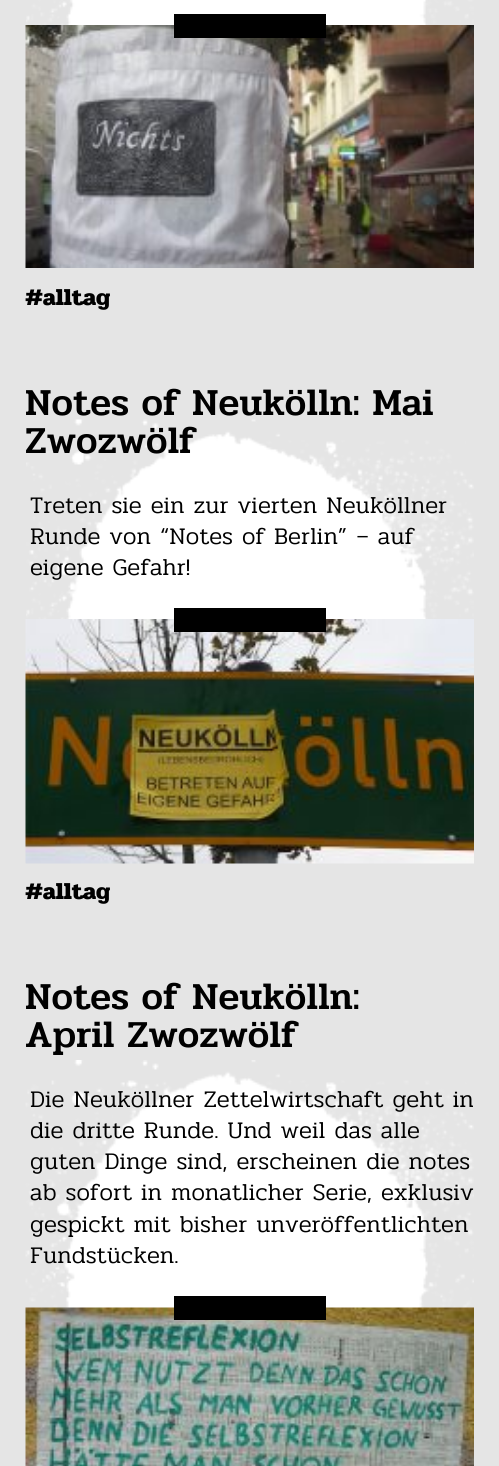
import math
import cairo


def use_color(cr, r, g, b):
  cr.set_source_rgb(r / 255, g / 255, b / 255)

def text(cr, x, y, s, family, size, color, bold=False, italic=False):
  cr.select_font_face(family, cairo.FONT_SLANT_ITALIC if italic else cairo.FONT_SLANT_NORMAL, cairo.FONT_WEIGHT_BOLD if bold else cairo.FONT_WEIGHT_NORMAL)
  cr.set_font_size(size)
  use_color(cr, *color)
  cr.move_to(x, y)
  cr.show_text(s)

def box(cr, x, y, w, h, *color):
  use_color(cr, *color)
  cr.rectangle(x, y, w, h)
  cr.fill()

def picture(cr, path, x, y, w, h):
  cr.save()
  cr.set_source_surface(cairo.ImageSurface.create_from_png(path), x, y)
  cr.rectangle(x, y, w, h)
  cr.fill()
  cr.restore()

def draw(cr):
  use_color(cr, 229, 229, 229)
  cr.paint()
  picture(cr, "img_01.png", 26, 0, 448, 25)
  picture(cr, "img_02.png", 25, 25, 449, 243)
  box(cr, 174, 14, 152, 24, 0, 0, 0)
  picture(cr, "img_03.png", 26, 419, 448, 200)
  picture(cr, "img_04.png", 25, 619, 449, 245)
  box(cr, 174, 608, 152, 24, 0, 0, 0)
  picture(cr, "img_05.png", 25, 1060, 449, 384)
  picture(cr, "img_06.png", 25, 1307, 449, 159)
  box(cr, 174, 1296, 152, 24, 0, 0, 0)
  text(cr, 25, 305, "#alltag", "Pridi", 24, (0, 0, 0), bold=True)
  text(cr, 25, 415, "Notes of Neukölln: Mai", "Pridi Medium", 38.4, (0, 0, 0))
  text(cr, 25, 453, "Zwozwölf", "Pridi Medium", 38.4, (0, 0, 0))
  text(cr, 30, 513, "Treten sie ein zur vierten Neuköllner", "Pridi Light", 24, (0, 0, 0))
  text(cr, 30, 544, "Runde von “Notes of Berlin” – auf", "Pridi Light", 24, (0, 0, 0))
  text(cr, 30, 575, "eigene Gefahr!", "Pridi Light", 24, (0, 0, 0))
  text(cr, 25, 899, "#alltag", "Pridi", 24, (0, 0, 0), bold=True)
  text(cr, 25, 1009, "Notes of Neukölln:", "Pridi Medium", 38.4, (0, 0, 0))
  text(cr, 25, 1047, "April Zwozwölf", "Pridi Medium", 38.4, (0, 0, 0))
  text(cr, 30, 1107, "Die Neuköllner Zettelwirtschaft geht in", "Pridi Light", 24, (0, 0, 0))
  text(cr, 30, 1138, "die dritte Runde. Und weil das alle", "Pridi Light", 24, (0, 0, 0))
  text(cr, 30, 1169, "guten Dinge sind, erscheinen die notes", "Pridi Light", 24, (0, 0, 0))
  text(cr, 30, 1200, "ab sofort in monatlicher Serie, exklusiv", "Pridi Light", 24, (0, 0, 0))
  text(cr, 30, 1232, "gespickt mit bisher unveröffentlichten", "Pridi Light", 24, (0, 0, 0))
  text(cr, 30, 1263, "Fundstücken.", "Pridi Light", 24, (0, 0, 0))


surface = cairo.ImageSurface(cairo.FORMAT_RGB24, 499, 1466)
cr = cairo.Context(surface)
options = cairo.FontOptions()
options.set_hint_metrics(cairo.HINT_METRICS_OFF)
options.set_hint_style(cairo.HINT_STYLE_NONE)
cr.set_font_options(options)
cr.set_miter_limit(4)
draw(cr)
surface.write_to_png("out.png")
